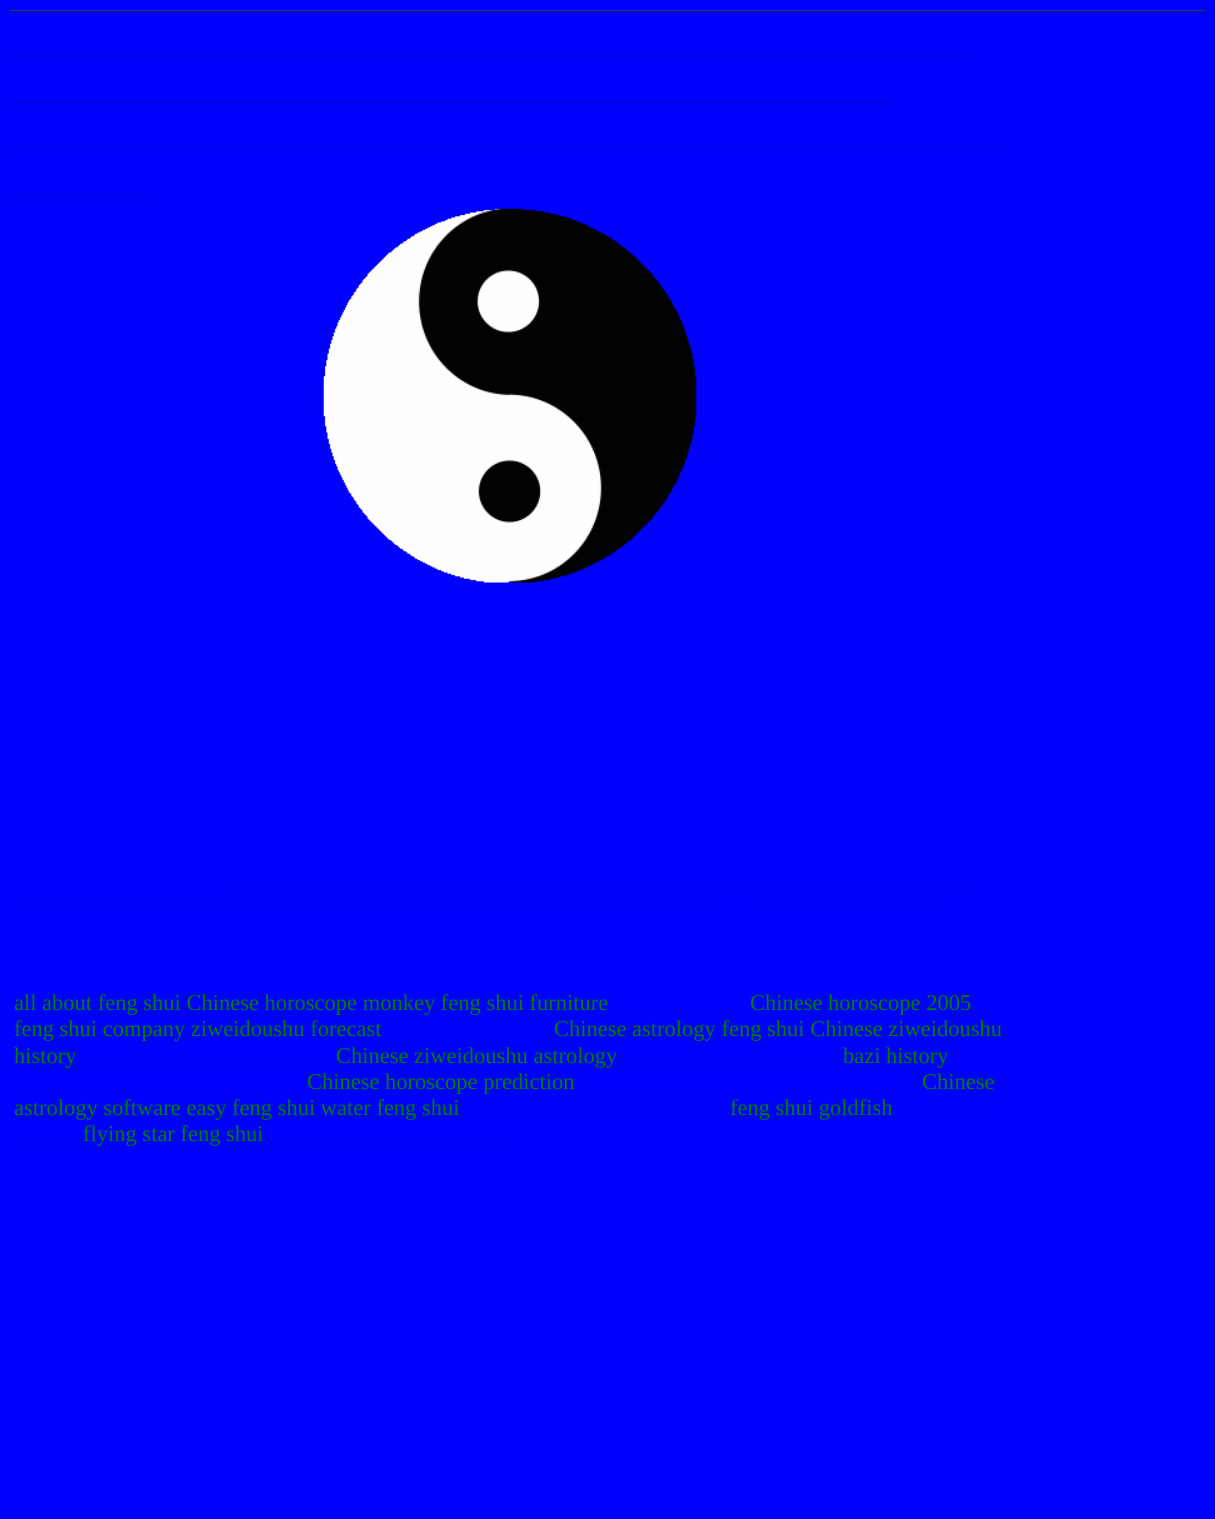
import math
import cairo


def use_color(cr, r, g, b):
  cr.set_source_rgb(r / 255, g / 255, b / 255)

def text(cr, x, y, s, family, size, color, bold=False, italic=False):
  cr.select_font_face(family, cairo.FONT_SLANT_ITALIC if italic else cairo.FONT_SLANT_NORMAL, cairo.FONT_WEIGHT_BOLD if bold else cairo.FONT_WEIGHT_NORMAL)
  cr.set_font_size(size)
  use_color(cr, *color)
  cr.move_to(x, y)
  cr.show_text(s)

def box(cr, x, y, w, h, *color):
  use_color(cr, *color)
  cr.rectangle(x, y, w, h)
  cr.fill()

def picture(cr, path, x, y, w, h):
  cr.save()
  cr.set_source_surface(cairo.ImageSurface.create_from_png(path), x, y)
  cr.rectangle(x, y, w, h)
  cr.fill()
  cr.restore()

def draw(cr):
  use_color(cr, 0, 0, 255)
  cr.paint()
  box(cr, 10, 10, 1195, 1, 57, 57, 57)
  box(cr, 14, 54, 957, 4, 0, 0, 238)
  box(cr, 14, 100, 877, 4, 0, 0, 238)
  box(cr, 14, 146, 992, 4, 0, 0, 238)
  box(cr, 14, 193, 132, 4, 0, 0, 238)
  picture(cr, "img_01.png", 323, 208, 374, 375)
  box(cr, 236, 884, 173, 1, 0, 0, 238)
  box(cr, 419, 884, 132, 1, 0, 0, 238)
  box(cr, 561, 884, 162, 1, 0, 0, 238)
  box(cr, 733, 884, 160, 1, 0, 0, 238)
  box(cr, 903, 884, 73, 1, 0, 0, 238)
  box(cr, 14, 906, 85, 1, 0, 0, 238)
  box(cr, 109, 906, 109, 1, 0, 0, 238)
  box(cr, 228, 906, 122, 1, 0, 0, 238)
  box(cr, 360, 906, 154, 1, 0, 0, 238)
  box(cr, 524, 906, 187, 1, 0, 0, 238)
  box(cr, 750, 906, 195, 1, 0, 0, 238)
  box(cr, 614, 1011, 130, 1, 0, 0, 238)
  box(cr, 386, 1038, 168, 1, 0, 0, 238)
  box(cr, 83, 1064, 252, 1, 0, 0, 238)
  box(cr, 623, 1064, 220, 1, 0, 0, 238)
  box(cr, 14, 1090, 287, 1, 0, 0, 238)
  box(cr, 580, 1090, 336, 1, 0, 0, 238)
  box(cr, 465, 1116, 265, 1, 0, 0, 238)
  box(cr, 899, 1116, 82, 1, 0, 0, 238)
  box(cr, 14, 1143, 70, 1, 0, 0, 238)
  box(cr, 269, 1143, 234, 1, 0, 0, 238)
  text(cr, 14, 1010, "all about feng shui Chinese horoscope monkey feng shui furniture", "Liberation Serif", 22.5, (0, 128, 0))
  text(cr, 750, 1010, "Chinese horoscope 2005", "Liberation Serif", 22.5, (0, 128, 0))
  text(cr, 14, 1036, "feng shui company ziweidoushu forecast", "Liberation Serif", 22.5, (0, 128, 0))
  text(cr, 554, 1036, "Chinese astrology feng shui Chinese ziweidoushu", "Liberation Serif", 22.5, (0, 128, 0))
  text(cr, 14, 1063, "history", "Liberation Serif", 22.5, (0, 128, 0))
  text(cr, 336, 1063, "Chinese ziweidoushu astrology", "Liberation Serif", 22.5, (0, 128, 0))
  text(cr, 843, 1063, "bazi history", "Liberation Serif", 22.5, (0, 128, 0))
  text(cr, 307, 1089, "Chinese horoscope prediction", "Liberation Serif", 22.5, (0, 128, 0))
  text(cr, 922, 1089, "Chinese", "Liberation Serif", 22.5, (0, 128, 0))
  text(cr, 14, 1115, "astrology software easy feng shui water feng shui", "Liberation Serif", 22.5, (0, 128, 0))
  text(cr, 730, 1115, "feng shui goldfish", "Liberation Serif", 22.5, (0, 128, 0))
  text(cr, 83, 1141, "flying star feng shui", "Liberation Serif", 22.5, (0, 128, 0))


surface = cairo.ImageSurface(cairo.FORMAT_RGB24, 1215, 1519)
cr = cairo.Context(surface)
options = cairo.FontOptions()
options.set_hint_metrics(cairo.HINT_METRICS_OFF)
options.set_hint_style(cairo.HINT_STYLE_NONE)
cr.set_font_options(options)
cr.set_miter_limit(4)
draw(cr)
surface.write_to_png("out.png")
